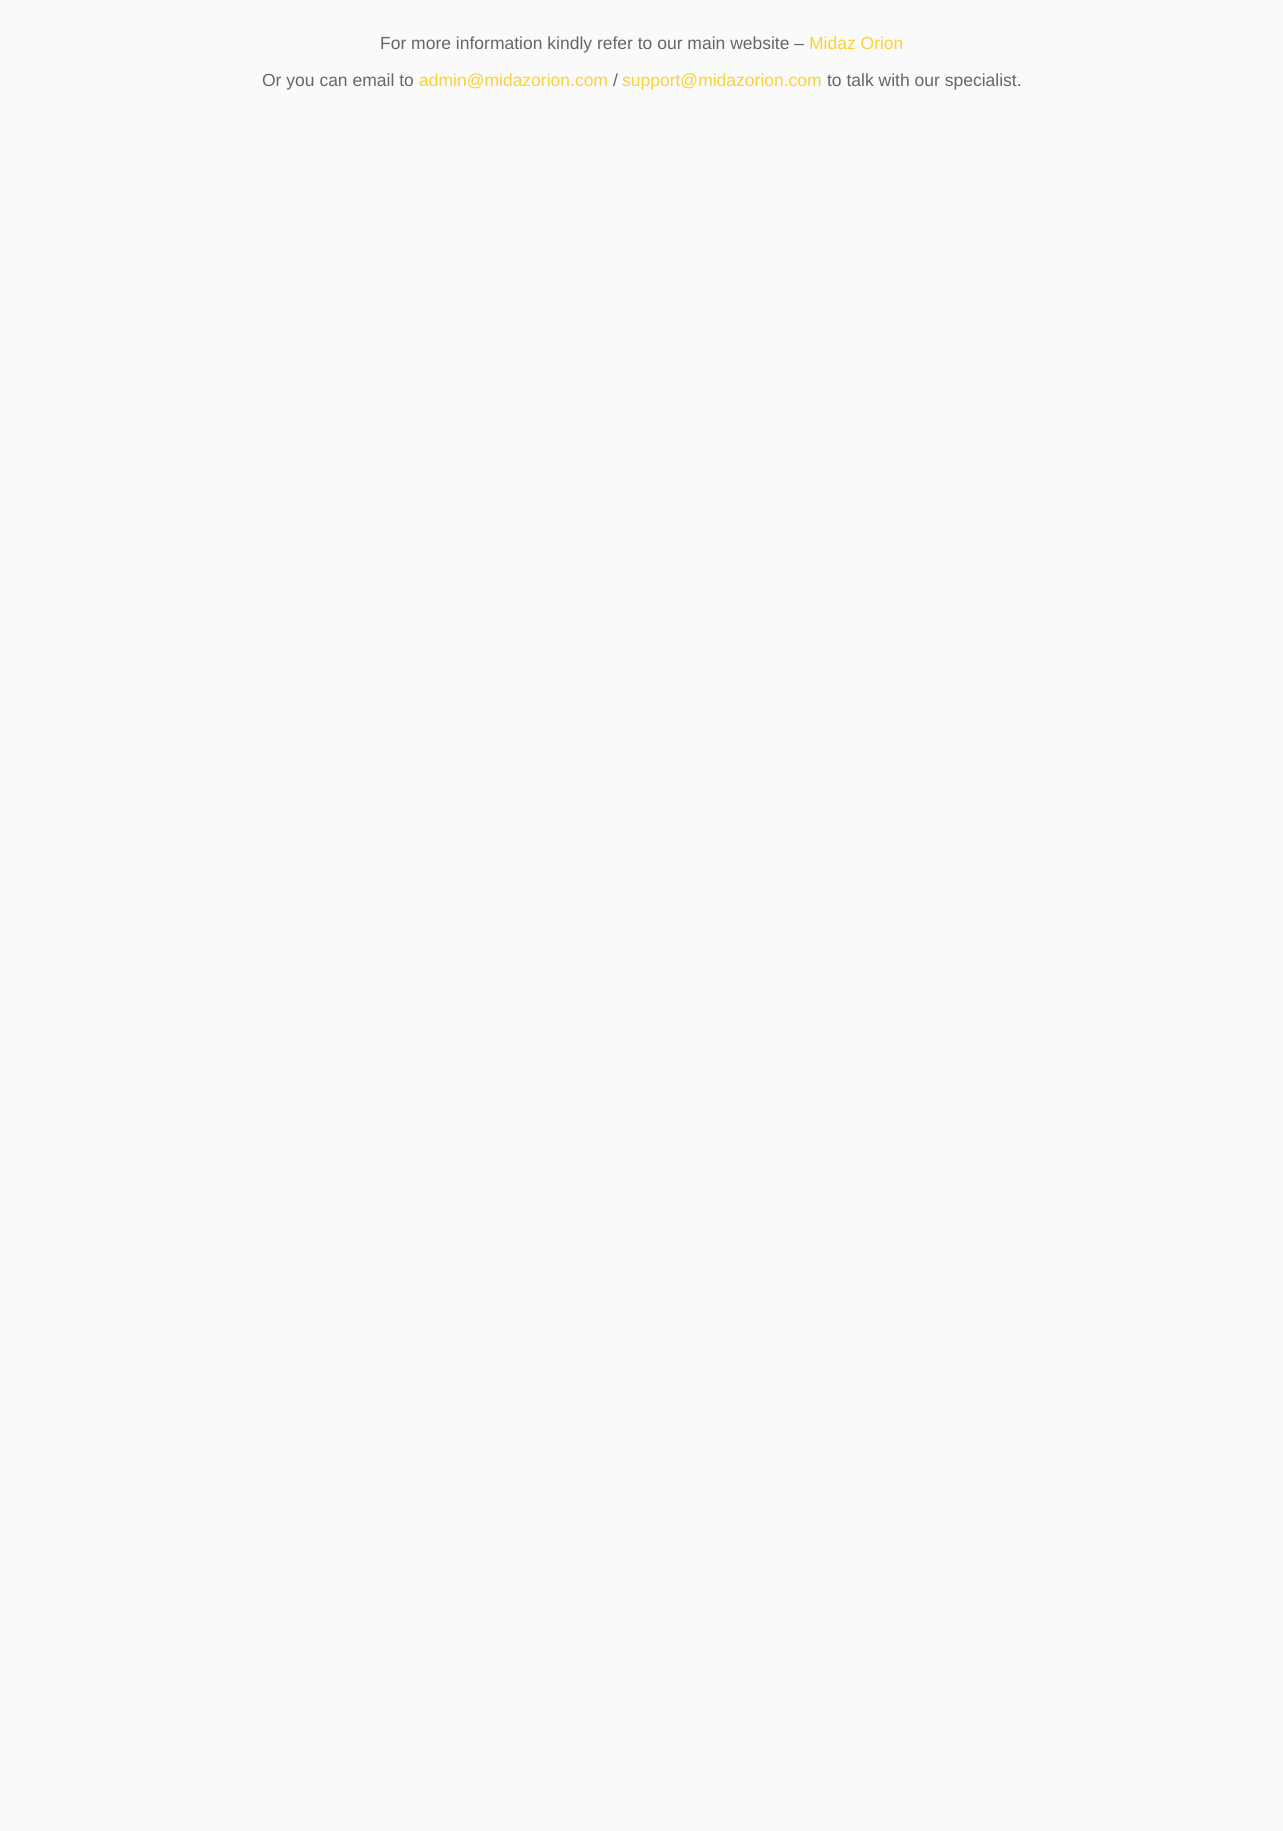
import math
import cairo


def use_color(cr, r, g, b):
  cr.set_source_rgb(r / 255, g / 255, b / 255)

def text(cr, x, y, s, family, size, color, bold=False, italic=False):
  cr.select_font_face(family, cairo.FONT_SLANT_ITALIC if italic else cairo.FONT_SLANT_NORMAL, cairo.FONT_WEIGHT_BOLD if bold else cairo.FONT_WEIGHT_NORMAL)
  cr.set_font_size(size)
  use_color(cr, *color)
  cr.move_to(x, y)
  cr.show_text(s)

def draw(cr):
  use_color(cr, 250, 250, 250)
  cr.paint()
  text(cr, 380, 49, "For more information kindly refer to our main website –", "Liberation Sans", 17.5, (102, 102, 102))
  text(cr, 809, 49, "Midaz Orion", "Liberation Sans", 17.5, (251, 209, 51))
  text(cr, 262, 86, "Or you can email to", "Liberation Sans", 17.5, (102, 102, 102))
  text(cr, 419, 86, "admin@midazorion.com", "Liberation Sans", 17.5, (251, 209, 51))
  text(cr, 613, 86, "/", "Liberation Sans", 17.5, (102, 102, 102))
  text(cr, 622, 86, "support@midazorion.com", "Liberation Sans", 17.5, (251, 209, 51))
  text(cr, 827, 86, "to talk with our specialist.", "Liberation Sans", 17.5, (102, 102, 102))


surface = cairo.ImageSurface(cairo.FORMAT_RGB24, 1283, 1831)
cr = cairo.Context(surface)
options = cairo.FontOptions()
options.set_hint_metrics(cairo.HINT_METRICS_OFF)
options.set_hint_style(cairo.HINT_STYLE_NONE)
cr.set_font_options(options)
cr.set_miter_limit(4)
draw(cr)
surface.write_to_png("out.png")
